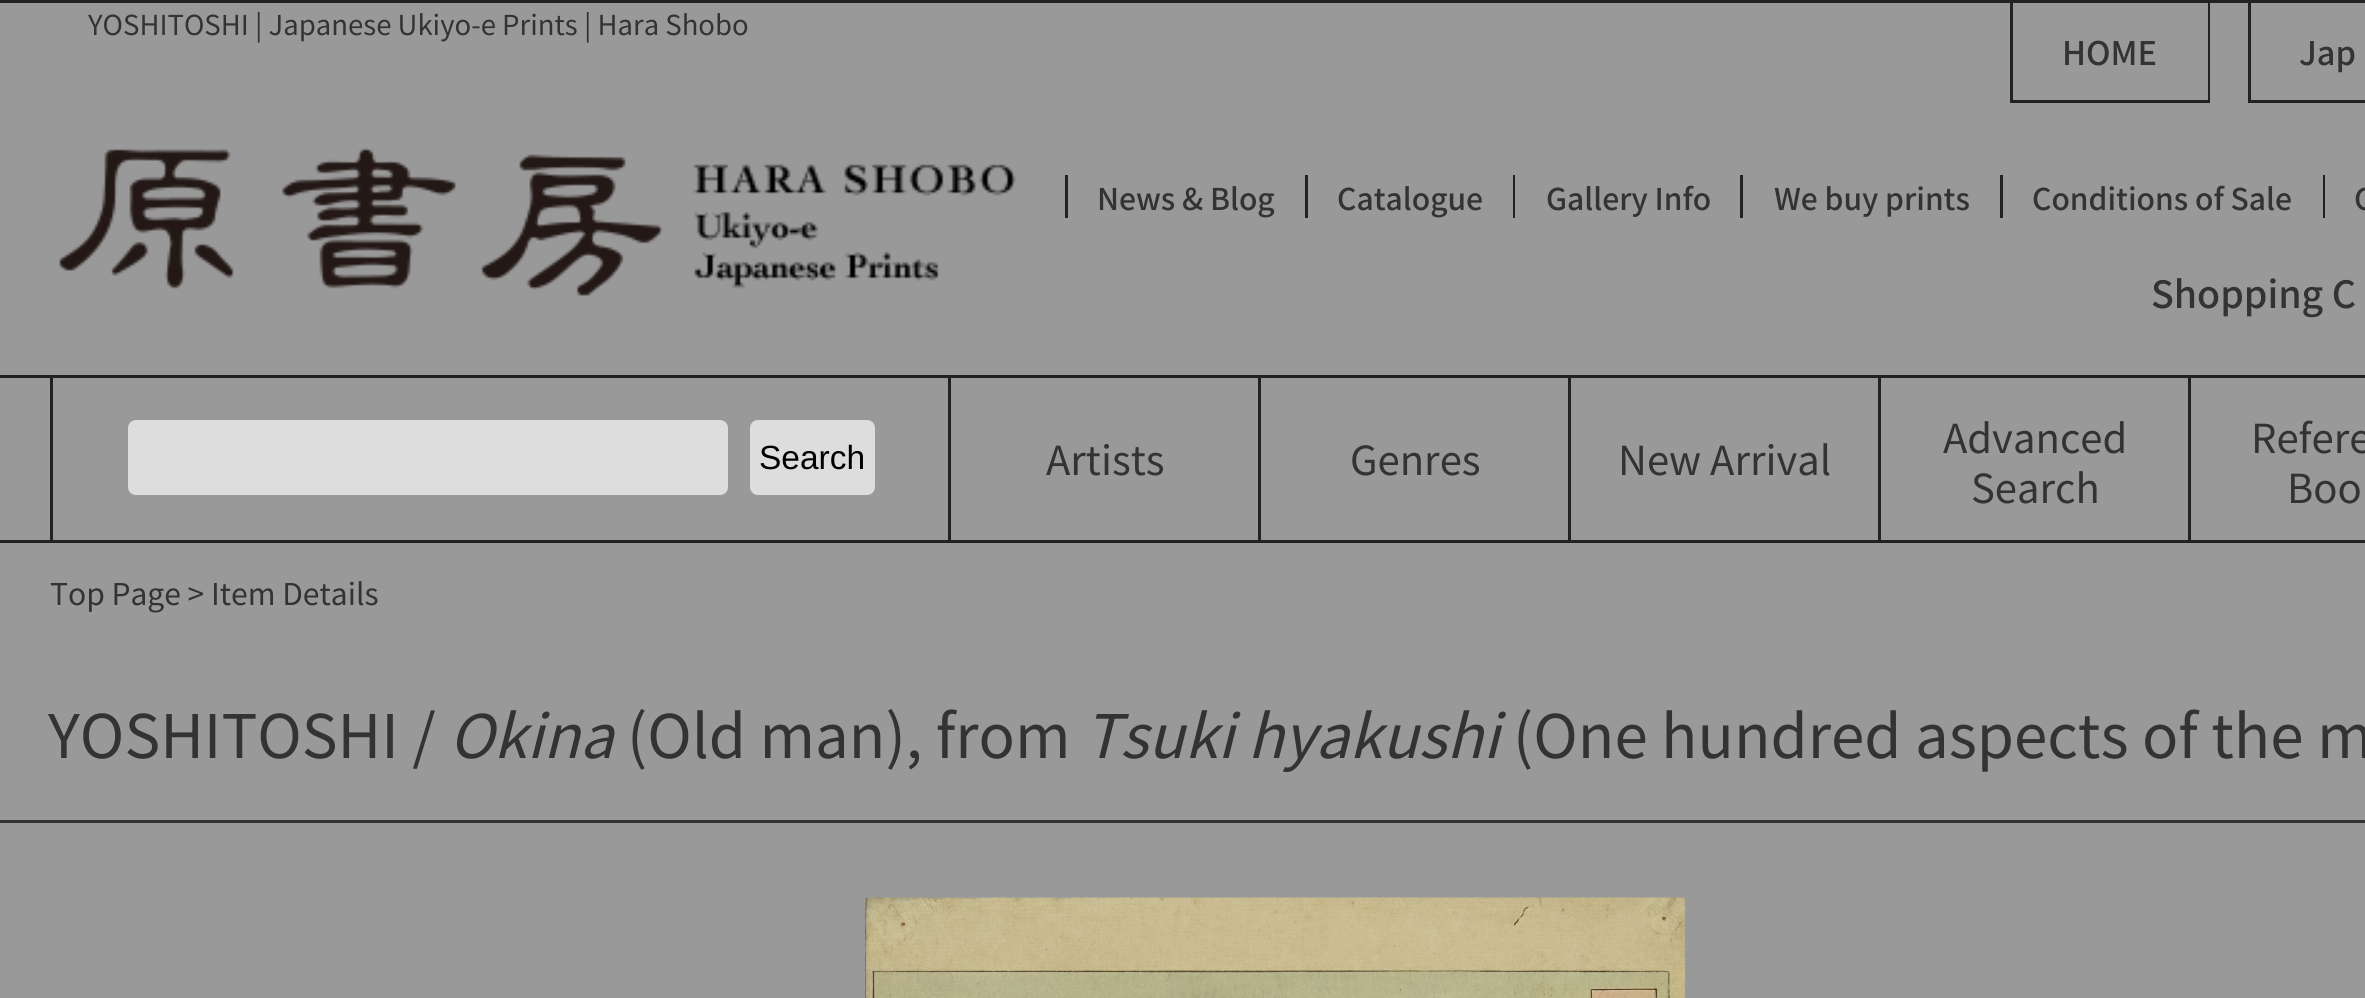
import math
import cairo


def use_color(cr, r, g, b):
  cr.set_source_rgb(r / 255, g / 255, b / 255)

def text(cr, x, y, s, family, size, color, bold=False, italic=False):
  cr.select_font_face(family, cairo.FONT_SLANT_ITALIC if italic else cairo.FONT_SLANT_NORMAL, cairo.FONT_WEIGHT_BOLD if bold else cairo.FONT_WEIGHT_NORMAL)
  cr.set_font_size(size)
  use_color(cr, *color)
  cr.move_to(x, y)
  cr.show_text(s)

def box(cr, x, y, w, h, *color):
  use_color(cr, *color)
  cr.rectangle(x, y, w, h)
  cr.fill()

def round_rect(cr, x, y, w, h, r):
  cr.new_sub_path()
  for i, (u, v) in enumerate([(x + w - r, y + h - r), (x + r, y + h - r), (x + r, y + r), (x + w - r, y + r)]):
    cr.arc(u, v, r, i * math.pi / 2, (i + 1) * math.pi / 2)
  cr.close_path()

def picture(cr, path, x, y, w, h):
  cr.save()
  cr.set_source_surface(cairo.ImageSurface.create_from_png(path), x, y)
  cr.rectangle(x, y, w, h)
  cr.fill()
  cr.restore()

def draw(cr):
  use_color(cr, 153, 153, 153)
  cr.paint()
  box(cr, 0, 0, 2365, 3, 34, 34, 34)
  box(cr, 0, 375, 2365, 3, 34, 34, 34)
  box(cr, 2208, 3, 2, 100, 34, 34, 34)
  box(cr, 2010, 100, 200, 3, 34, 34, 34)
  box(cr, 2010, 3, 3, 100, 34, 34, 34)
  box(cr, 2248, 100, 117, 3, 34, 34, 34)
  box(cr, 2248, 3, 3, 100, 34, 34, 34)
  picture(cr, "img_01.png", 59, 147, 957, 149)
  box(cr, 1305, 175, 3, 43, 34, 34, 34)
  box(cr, 1065, 175, 3, 43, 34, 34, 34)
  box(cr, 1513, 175, 2, 43, 34, 34, 34)
  box(cr, 1740, 175, 3, 43, 34, 34, 34)
  box(cr, 2000, 175, 3, 43, 34, 34, 34)
  box(cr, 2323, 175, 2, 43, 34, 34, 34)
  box(cr, 0, 540, 2365, 3, 34, 34, 34)
  box(cr, 948, 378, 3, 162, 34, 34, 34)
  box(cr, 50, 378, 3, 162, 34, 34, 34)
  use_color(cr, 221, 221, 221)
  round_rect(cr, 128, 420, 600, 75, 8)
  cr.fill()
  round_rect(cr, 750, 420, 125, 75, 8)
  cr.fill()
  box(cr, 1258, 378, 3, 162, 34, 34, 34)
  box(cr, 1568, 378, 3, 162, 34, 34, 34)
  box(cr, 1878, 378, 3, 162, 34, 34, 34)
  box(cr, 2188, 378, 3, 162, 34, 34, 34)
  box(cr, 0, 820, 2365, 3, 51, 51, 51)
  picture(cr, "img_02.png", 865, 897, 820, 101)
  text(cr, 88, 35, "YOSHITOSHI | Japanese Ukiyo-e Prints | Hara Shobo", "Noto Sans JP", 27.5, (51, 51, 51))
  text(cr, 2062, 65, "HOME", "Noto Sans JP Medium", 32.5, (51, 51, 51))
  text(cr, 2299, 65, "Jap", "Noto Sans JP Medium", 32.5, (51, 51, 51))
  text(cr, 1097, 210, "News & Blog", "Noto Sans JP Medium", 30, (51, 51, 51))
  text(cr, 1337, 210, "Catalogue", "Noto Sans JP Medium", 30, (51, 51, 51))
  text(cr, 1546, 210, "Gallery Info", "Noto Sans JP Medium", 30, (51, 51, 51))
  text(cr, 1774, 210, "We buy prints", "Noto Sans JP Medium", 30, (51, 51, 51))
  text(cr, 2032, 210, "Conditions of Sale", "Noto Sans JP Medium", 30, (51, 51, 51))
  text(cr, 2354, 210, "C", "Noto Sans JP Medium", 30, (51, 51, 51))
  text(cr, 2151, 308, "Shopping C", "Noto Sans JP Medium", 37.5, (51, 51, 51))
  text(cr, 759, 469, "Search", "Liberation Sans", 33.5, (0, 0, 0))
  text(cr, 1046, 475, "Artists", "Noto Sans JP", 40, (51, 51, 51))
  text(cr, 1350, 475, "Genres", "Noto Sans JP", 40, (51, 51, 51))
  text(cr, 1618, 475, "New Arrival", "Noto Sans JP", 40, (51, 51, 51))
  text(cr, 1943, 453, "Advanced", "Noto Sans JP", 40, (51, 51, 51))
  text(cr, 1971, 503, "Search", "Noto Sans JP", 40, (51, 51, 51))
  text(cr, 2251, 453, "Refere", "Noto Sans JP", 40, (51, 51, 51))
  text(cr, 2287, 503, "Boo", "Noto Sans JP", 40, (51, 51, 51))
  text(cr, 50, 605, "Top Page > Item Details", "Noto Sans JP", 30, (51, 51, 51))
  text(cr, 48, 758, "YOSHITOSHI /", "Noto Sans JP", 60, (51, 51, 51))
  text(cr, 449, 758, "Okina", "Noto Sans JP", 60, (51, 51, 51), italic=True)
  text(cr, 627, 758, "(Old man), from", "Noto Sans JP", 60, (51, 51, 51))
  text(cr, 1084, 758, "Tsuki hyakushi", "Noto Sans JP", 60, (51, 51, 51), italic=True)
  text(cr, 1513, 758, "(One hundred aspects of the m", "Noto Sans JP", 60, (51, 51, 51))


surface = cairo.ImageSurface(cairo.FORMAT_RGB24, 2365, 998)
cr = cairo.Context(surface)
options = cairo.FontOptions()
options.set_hint_metrics(cairo.HINT_METRICS_OFF)
options.set_hint_style(cairo.HINT_STYLE_NONE)
cr.set_font_options(options)
cr.set_miter_limit(4)
draw(cr)
surface.write_to_png("out.png")
